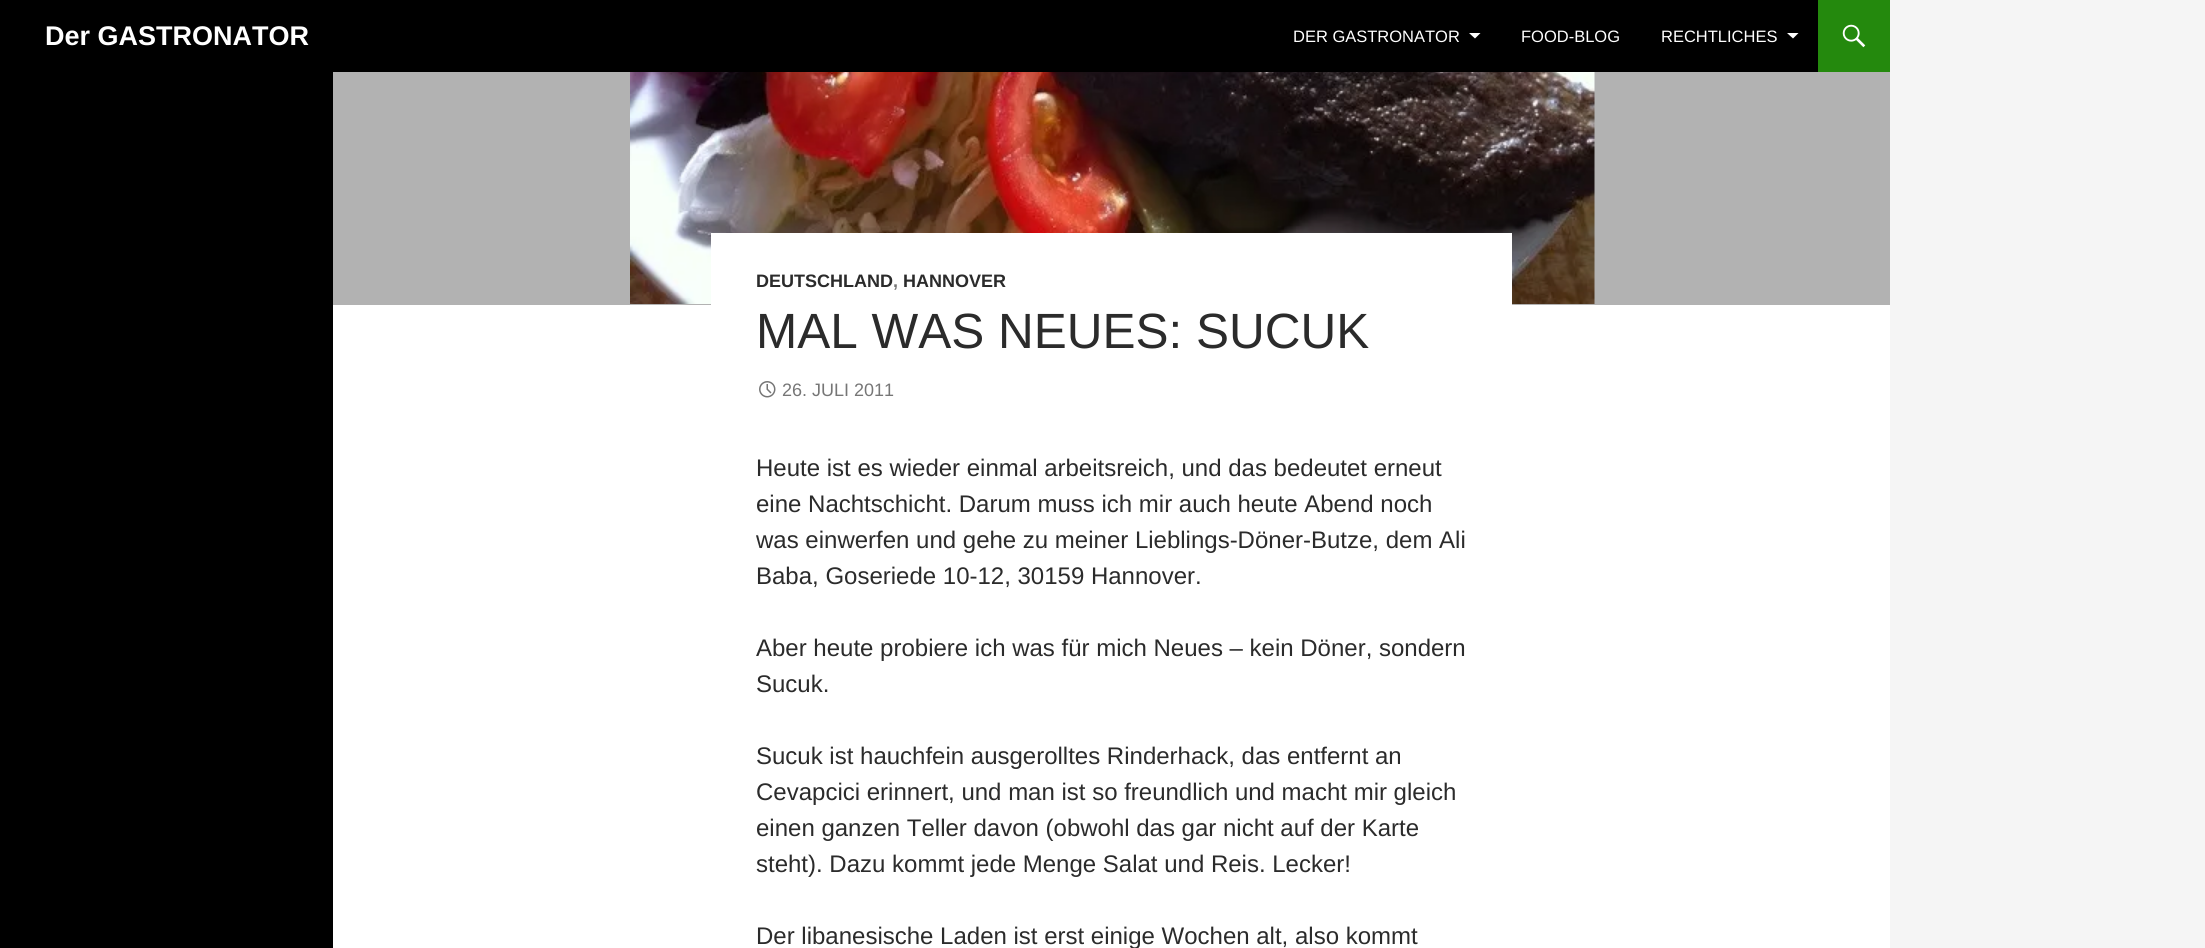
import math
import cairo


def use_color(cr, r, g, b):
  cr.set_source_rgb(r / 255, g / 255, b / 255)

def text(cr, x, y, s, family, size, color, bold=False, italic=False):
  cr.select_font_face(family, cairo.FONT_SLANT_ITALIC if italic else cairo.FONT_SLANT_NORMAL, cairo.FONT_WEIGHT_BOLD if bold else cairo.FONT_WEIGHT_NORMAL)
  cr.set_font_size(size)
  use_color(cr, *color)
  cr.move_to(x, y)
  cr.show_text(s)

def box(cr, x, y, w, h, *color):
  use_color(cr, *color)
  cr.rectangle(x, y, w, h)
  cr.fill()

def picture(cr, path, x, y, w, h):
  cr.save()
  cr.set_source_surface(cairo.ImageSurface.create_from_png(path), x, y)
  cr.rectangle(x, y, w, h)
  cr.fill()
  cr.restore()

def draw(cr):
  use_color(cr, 245, 245, 245)
  cr.paint()
  box(cr, 333, 305, 1557, 643, 255, 255, 255)
  box(cr, 0, 0, 1818, 72, 0, 0, 0)
  use_color(cr, 255, 255, 255)
  cr.new_path()
  cr.move_to(1469, 33)
  cr.line_to(1480.5, 33)
  cr.line_to(1475, 38.5)
  cr.close_path()
  cr.fill()
  cr.new_path()
  cr.move_to(1787, 33)
  cr.line_to(1798.5, 33)
  cr.line_to(1793, 38.5)
  cr.close_path()
  cr.fill()
  box(cr, 1818, 0, 72, 72, 36, 137, 13)
  picture(cr, "img_01.png", 1842, 24, 24, 24)
  box(cr, 0, 72, 333, 876, 0, 0, 0)
  box(cr, 333, 72, 1557, 233, 178, 178, 178)
  picture(cr, "img_02.png", 630, 72, 965, 232)
  box(cr, 711, 233, 801, 72, 255, 255, 255)
  picture(cr, "img_03.png", 759, 381, 17, 17)
  text(cr, 45, 45, "Der GASTRONATOR", "Liberation Sans", 27, (255, 255, 255), bold=True)
  text(cr, 1293, 42, "DER GASTRONATOR", "Liberation Sans", 16.5, (255, 255, 255))
  text(cr, 1521, 42, "FOOD-BLOG", "Liberation Sans", 16.5, (255, 255, 255))
  text(cr, 1661, 42, "RECHTLICHES", "Liberation Sans", 16.5, (255, 255, 255))
  text(cr, 756, 287, "DEUTSCHLAND", "Liberation Sans", 18, (43, 43, 43), bold=True)
  text(cr, 893, 287, ",", "Liberation Sans", 18, (118, 118, 118), bold=True)
  text(cr, 903, 287, "HANNOVER", "Liberation Sans", 18, (43, 43, 43), bold=True)
  text(cr, 756, 348, "MAL WAS NEUES: SUCUK", "Liberation Sans", 49.5, (43, 43, 43))
  text(cr, 782, 396, "26. JULI 2011", "Liberation Sans", 18, (118, 118, 118))
  text(cr, 756, 476, "Heute ist es wieder einmal arbeitsreich, und das bedeutet erneut", "Liberation Sans", 24, (43, 43, 43))
  text(cr, 756, 512, "eine Nachtschicht. Darum muss ich mir auch heute Abend noch", "Liberation Sans", 24, (43, 43, 43))
  text(cr, 756, 548, "was einwerfen und gehe zu meiner Lieblings-Döner-Butze, dem Ali", "Liberation Sans", 24, (43, 43, 43))
  text(cr, 756, 584, "Baba, Goseriede 10-12, 30159 Hannover.", "Liberation Sans", 24, (43, 43, 43))
  text(cr, 756, 656, "Aber heute probiere ich was für mich Neues – kein Döner, sondern", "Liberation Sans", 24, (43, 43, 43))
  text(cr, 756, 692, "Sucuk.", "Liberation Sans", 24, (43, 43, 43))
  text(cr, 756, 764, "Sucuk ist hauchfein ausgerolltes Rinderhack, das entfernt an", "Liberation Sans", 24, (43, 43, 43))
  text(cr, 756, 800, "Cevapcici erinnert, und man ist so freundlich und macht mir gleich", "Liberation Sans", 24, (43, 43, 43))
  text(cr, 756, 836, "einen ganzen Teller davon (obwohl das gar nicht auf der Karte", "Liberation Sans", 24, (43, 43, 43))
  text(cr, 756, 872, "steht). Dazu kommt jede Menge Salat und Reis. Lecker!", "Liberation Sans", 24, (43, 43, 43))
  text(cr, 756, 944, "Der libanesische Laden ist erst einige Wochen alt, also kommt", "Liberation Sans", 24, (43, 43, 43))


surface = cairo.ImageSurface(cairo.FORMAT_RGB24, 2205, 948)
cr = cairo.Context(surface)
options = cairo.FontOptions()
options.set_hint_metrics(cairo.HINT_METRICS_OFF)
options.set_hint_style(cairo.HINT_STYLE_NONE)
cr.set_font_options(options)
cr.set_miter_limit(4)
draw(cr)
surface.write_to_png("out.png")
